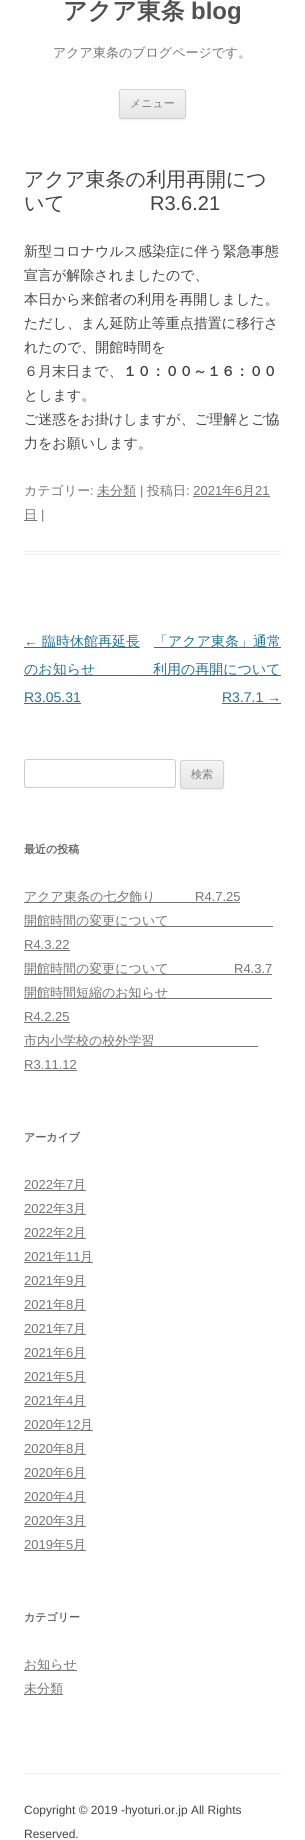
import math
import cairo


def use_color(cr, r, g, b):
  cr.set_source_rgb(r / 255, g / 255, b / 255)

def text(cr, x, y, s, family, size, color, bold=False, italic=False):
  cr.select_font_face(family, cairo.FONT_SLANT_ITALIC if italic else cairo.FONT_SLANT_NORMAL, cairo.FONT_WEIGHT_BOLD if bold else cairo.FONT_WEIGHT_NORMAL)
  cr.set_font_size(size)
  use_color(cr, *color)
  cr.move_to(x, y)
  cr.show_text(s)

def box(cr, x, y, w, h, *color):
  use_color(cr, *color)
  cr.rectangle(x, y, w, h)
  cr.fill()

def round_rect(cr, x, y, w, h, r):
  cr.new_sub_path()
  for i, (u, v) in enumerate([(x + w - r, y + h - r), (x + r, y + h - r), (x + r, y + r), (x + w - r, y + r)]):
    cr.arc(u, v, r, i * math.pi / 2, (i + 1) * math.pi / 2)
  cr.close_path()

def shadow(cr, x, y, w, h, r, blur, alpha):
  cr.push_group_with_content(cairo.CONTENT_ALPHA)
  cr.set_operator(cairo.OPERATOR_SOURCE)
  for i in range(15, -16, -2):
    e = blur * i / 6
    if min(w, h) + 2 * e > 0:
      cr.set_source_rgba(0, 0, 0, alpha * math.erfc((i - 1) / 8.5) / 2)
      round_rect(cr, x - e, y - e, w + 2 * e, h + 2 * e, max(0, min(r + e + blur * .6, min(w, h) / 2 + e)))
      cr.fill()
  cr.mask(cr.pop_group())

def draw(cr):
  use_color(cr, 255, 255, 255)
  cr.paint()
  use_color(cr, 64, 64, 64)
  shadow(cr, 119, 90, 67, 30, 3, 1, 0.1)
  cr.save()
  round_rect(cr, 119, 89, 67, 30, 3)
  cr.clip()
  gradient = cairo.LinearGradient(153, 90, 153, 118)
  gradient.add_color_stop_rgba(0, 0.957, 0.957, 0.957, 1)
  gradient.add_color_stop_rgba(1, 0.902, 0.902, 0.902, 1)
  cr.set_source(gradient)
  cr.rectangle(119, 90, 67, 28)
  cr.fill()
  cr.restore()
  round_rect(cr, 119.5, 89.5, 66, 29, 2.5)
  use_color(cr, 210, 210, 210)
  cr.set_line_width(1)
  cr.stroke()
  box(cr, 24, 551, 257, 1, 237, 237, 237)
  box(cr, 24, 554, 257, 1, 237, 237, 237)
  box(cr, 97, 496, 39, 1, 117, 117, 117)
  box(cr, 193, 496, 77, 1, 117, 117, 117)
  box(cr, 24, 520, 13, 1, 117, 117, 117)
  box(cr, 24, 647, 116, 1, 33, 117, 155)
  box(cr, 24, 675, 257, 1, 33, 117, 155)
  box(cr, 24, 703, 57, 1, 33, 117, 155)
  box(cr, 154, 647, 127, 1, 33, 117, 155)
  box(cr, 222, 703, 59, 1, 33, 117, 155)
  round_rect(cr, 24.5, 759.5, 151, 28, 2.5)
  use_color(cr, 204, 204, 204)
  cr.stroke()
  use_color(cr, 64, 64, 64)
  shadow(cr, 180, 761, 44, 29, 3, 1, 0.1)
  cr.save()
  round_rect(cr, 180, 760, 44, 29, 3)
  cr.clip()
  gradient = cairo.LinearGradient(202, 761, 202, 788)
  gradient.add_color_stop_rgba(0, 0.957, 0.957, 0.957, 1)
  gradient.add_color_stop_rgba(1, 0.902, 0.902, 0.902, 1)
  cr.set_source(gradient)
  cr.rectangle(180, 761, 44, 27)
  cr.fill()
  cr.restore()
  round_rect(cr, 180.5, 760.5, 43, 28, 2.5)
  use_color(cr, 210, 210, 210)
  cr.stroke()
  box(cr, 24, 902, 216, 1, 117, 117, 117)
  box(cr, 24, 926, 249, 1, 117, 117, 117)
  box(cr, 24, 950, 46, 1, 117, 117, 117)
  box(cr, 24, 974, 248, 1, 117, 117, 117)
  box(cr, 24, 998, 248, 1, 117, 117, 117)
  box(cr, 24, 1022, 46, 1, 117, 117, 117)
  box(cr, 24, 1046, 234, 1, 117, 117, 117)
  box(cr, 24, 1070, 53, 1, 117, 117, 117)
  box(cr, 24, 1190, 62, 1, 117, 117, 117)
  box(cr, 24, 1214, 62, 1, 117, 117, 117)
  box(cr, 24, 1238, 62, 1, 117, 117, 117)
  box(cr, 24, 1262, 69, 1, 117, 117, 117)
  box(cr, 24, 1286, 62, 1, 117, 117, 117)
  box(cr, 24, 1310, 62, 1, 117, 117, 117)
  box(cr, 24, 1334, 62, 1, 117, 117, 117)
  box(cr, 24, 1358, 62, 1, 117, 117, 117)
  box(cr, 24, 1382, 62, 1, 117, 117, 117)
  box(cr, 24, 1406, 62, 1, 117, 117, 117)
  box(cr, 24, 1430, 69, 1, 117, 117, 117)
  box(cr, 24, 1454, 62, 1, 117, 117, 117)
  box(cr, 24, 1478, 62, 1, 117, 117, 117)
  box(cr, 24, 1502, 62, 1, 117, 117, 117)
  box(cr, 24, 1526, 62, 1, 117, 117, 117)
  box(cr, 24, 1550, 62, 1, 117, 117, 117)
  box(cr, 24, 1670, 53, 1, 117, 117, 117)
  box(cr, 24, 1694, 39, 1, 117, 117, 117)
  box(cr, 24, 1773, 257, 1, 237, 237, 237)
  text(cr, 63, 19, "アクア東条", "WenQuanYi Zen Hei", 24, (81, 81, 81), bold=True)
  text(cr, 191, 19, "blog", "Liberation Sans", 24, (81, 81, 81), bold=True)
  text(cr, 53, 57, "アクア東条のブログページです。", "WenQuanYi Zen Hei Medium", 13, (117, 117, 117))
  text(cr, 130, 107, "メニュー", "WenQuanYi Zen Hei Medium", 11, (124, 124, 124))
  text(cr, 24, 186, "アクア東条の利用再開につ", "WenQuanYi Zen Hei Medium", 20, (68, 68, 68))
  text(cr, 24, 210, "いて", "WenQuanYi Zen Hei Medium", 20, (68, 68, 68))
  text(cr, 150, 210, "R3.6.21", "Liberation Sans", 20, (68, 68, 68))
  text(cr, 24, 256, "新型コロナウルス感染症に伴う緊急事態", "WenQuanYi Zen Hei Medium", 14, (68, 68, 68))
  text(cr, 24, 280, "宣言が解除されましたので、", "WenQuanYi Zen Hei Medium", 14, (68, 68, 68))
  text(cr, 24, 304, "本日から来館者の利用を再開しました。", "WenQuanYi Zen Hei Medium", 14, (68, 68, 68))
  text(cr, 24, 328, "ただし、まん延防止等重点措置に移行さ", "WenQuanYi Zen Hei Medium", 14, (68, 68, 68))
  text(cr, 24, 352, "れたので、開館時間を", "WenQuanYi Zen Hei Medium", 14, (68, 68, 68))
  text(cr, 24, 376, "６月末日まで、", "WenQuanYi Zen Hei Medium", 14, (68, 68, 68))
  text(cr, 123, 376, "１０：００～１６：００", "WenQuanYi Zen Hei", 14, (68, 68, 68), bold=True)
  text(cr, 24, 400, "とします。", "WenQuanYi Zen Hei Medium", 14, (68, 68, 68))
  text(cr, 24, 424, "ご迷惑をお掛けしますが、ご理解とご協", "WenQuanYi Zen Hei Medium", 14, (68, 68, 68))
  text(cr, 24, 448, "力をお願いします。", "WenQuanYi Zen Hei Medium", 14, (68, 68, 68))
  text(cr, 24, 495, "カテゴリー", "WenQuanYi Zen Hei Medium", 13, (117, 117, 117))
  text(cr, 90, 495, ":", "Liberation Sans", 13, (117, 117, 117))
  text(cr, 97, 495, "未分類", "WenQuanYi Zen Hei Medium", 13, (117, 117, 117))
  text(cr, 140, 495, "|", "Liberation Sans", 13, (117, 117, 117))
  text(cr, 147, 495, "投稿日", "WenQuanYi Zen Hei Medium", 13, (117, 117, 117))
  text(cr, 186, 495, ": 2021", "Liberation Sans", 13, (117, 117, 117))
  text(cr, 222, 495, "年", "WenQuanYi Zen Hei Medium", 13, (117, 117, 117))
  text(cr, 235, 495, "6", "Liberation Sans", 13, (117, 117, 117))
  text(cr, 242, 495, "月", "WenQuanYi Zen Hei Medium", 13, (117, 117, 117))
  text(cr, 255, 495, "21", "Liberation Sans", 13, (117, 117, 117))
  text(cr, 24, 519, "日", "WenQuanYi Zen Hei Medium", 13, (117, 117, 117))
  text(cr, 41, 519, "|", "Liberation Sans", 13, (117, 117, 117))
  text(cr, 24, 646, "←", "Liberation Sans", 14, (33, 117, 155))
  text(cr, 42, 646, "臨時休館再延長", "WenQuanYi Zen Hei Medium", 14, (33, 117, 155))
  text(cr, 24, 674, "のお知らせ", "WenQuanYi Zen Hei Medium", 14, (33, 117, 155))
  text(cr, 24, 702, "R3.05.31", "Liberation Sans", 14, (33, 117, 155))
  text(cr, 154, 646, "「アクア東条」通常", "WenQuanYi Zen Hei Medium", 14, (33, 117, 155))
  text(cr, 153, 674, "利用の再開について", "WenQuanYi Zen Hei Medium", 14, (33, 117, 155))
  text(cr, 222, 702, "R3.7.1 →", "Liberation Sans", 14, (33, 117, 155))
  text(cr, 191, 778, "検索", "WenQuanYi Zen Hei Medium", 11, (124, 124, 124))
  text(cr, 24, 853, "最近の投稿", "WenQuanYi Zen Hei", 11, (99, 99, 99), bold=True)
  text(cr, 24, 901, "アクア東条の七夕飾り", "WenQuanYi Zen Hei Medium", 13, (117, 117, 117))
  text(cr, 195, 901, "R4.7.25", "Liberation Sans", 13, (117, 117, 117))
  text(cr, 24, 925, "開館時間の変更について", "WenQuanYi Zen Hei Medium", 13, (117, 117, 117))
  text(cr, 24, 949, "R4.3.22", "Liberation Sans", 13, (117, 117, 117))
  text(cr, 24, 973, "開館時間の変更について", "WenQuanYi Zen Hei Medium", 13, (117, 117, 117))
  text(cr, 234, 973, "R4.3.7", "Liberation Sans", 13, (117, 117, 117))
  text(cr, 24, 997, "開館時間短縮のお知らせ", "WenQuanYi Zen Hei Medium", 13, (117, 117, 117))
  text(cr, 24, 1021, "R4.2.25", "Liberation Sans", 13, (117, 117, 117))
  text(cr, 24, 1045, "市内小学校の校外学習", "WenQuanYi Zen Hei Medium", 13, (117, 117, 117))
  text(cr, 24, 1069, "R3.11.12", "Liberation Sans", 13, (117, 117, 117))
  text(cr, 24, 1141, "アーカイブ", "WenQuanYi Zen Hei", 11, (99, 99, 99), bold=True)
  text(cr, 24, 1189, "2022", "Liberation Sans", 13, (117, 117, 117))
  text(cr, 53, 1189, "年", "WenQuanYi Zen Hei Medium", 13, (117, 117, 117))
  text(cr, 66, 1189, "7", "Liberation Sans", 13, (117, 117, 117))
  text(cr, 73, 1189, "月", "WenQuanYi Zen Hei Medium", 13, (117, 117, 117))
  text(cr, 24, 1213, "2022", "Liberation Sans", 13, (117, 117, 117))
  text(cr, 53, 1213, "年", "WenQuanYi Zen Hei Medium", 13, (117, 117, 117))
  text(cr, 66, 1213, "3", "Liberation Sans", 13, (117, 117, 117))
  text(cr, 73, 1213, "月", "WenQuanYi Zen Hei Medium", 13, (117, 117, 117))
  text(cr, 24, 1237, "2022", "Liberation Sans", 13, (117, 117, 117))
  text(cr, 53, 1237, "年", "WenQuanYi Zen Hei Medium", 13, (117, 117, 117))
  text(cr, 66, 1237, "2", "Liberation Sans", 13, (117, 117, 117))
  text(cr, 73, 1237, "月", "WenQuanYi Zen Hei Medium", 13, (117, 117, 117))
  text(cr, 24, 1261, "2021", "Liberation Sans", 13, (117, 117, 117))
  text(cr, 53, 1261, "年", "WenQuanYi Zen Hei Medium", 13, (117, 117, 117))
  text(cr, 66, 1261, "11", "Liberation Sans", 13, (117, 117, 117))
  text(cr, 80, 1261, "月", "WenQuanYi Zen Hei Medium", 13, (117, 117, 117))
  text(cr, 24, 1285, "2021", "Liberation Sans", 13, (117, 117, 117))
  text(cr, 53, 1285, "年", "WenQuanYi Zen Hei Medium", 13, (117, 117, 117))
  text(cr, 66, 1285, "9", "Liberation Sans", 13, (117, 117, 117))
  text(cr, 73, 1285, "月", "WenQuanYi Zen Hei Medium", 13, (117, 117, 117))
  text(cr, 24, 1309, "2021", "Liberation Sans", 13, (117, 117, 117))
  text(cr, 53, 1309, "年", "WenQuanYi Zen Hei Medium", 13, (117, 117, 117))
  text(cr, 66, 1309, "8", "Liberation Sans", 13, (117, 117, 117))
  text(cr, 73, 1309, "月", "WenQuanYi Zen Hei Medium", 13, (117, 117, 117))
  text(cr, 24, 1333, "2021", "Liberation Sans", 13, (117, 117, 117))
  text(cr, 53, 1333, "年", "WenQuanYi Zen Hei Medium", 13, (117, 117, 117))
  text(cr, 66, 1333, "7", "Liberation Sans", 13, (117, 117, 117))
  text(cr, 73, 1333, "月", "WenQuanYi Zen Hei Medium", 13, (117, 117, 117))
  text(cr, 24, 1357, "2021", "Liberation Sans", 13, (117, 117, 117))
  text(cr, 53, 1357, "年", "WenQuanYi Zen Hei Medium", 13, (117, 117, 117))
  text(cr, 66, 1357, "6", "Liberation Sans", 13, (117, 117, 117))
  text(cr, 73, 1357, "月", "WenQuanYi Zen Hei Medium", 13, (117, 117, 117))
  text(cr, 24, 1381, "2021", "Liberation Sans", 13, (117, 117, 117))
  text(cr, 53, 1381, "年", "WenQuanYi Zen Hei Medium", 13, (117, 117, 117))
  text(cr, 66, 1381, "5", "Liberation Sans", 13, (117, 117, 117))
  text(cr, 73, 1381, "月", "WenQuanYi Zen Hei Medium", 13, (117, 117, 117))
  text(cr, 24, 1405, "2021", "Liberation Sans", 13, (117, 117, 117))
  text(cr, 53, 1405, "年", "WenQuanYi Zen Hei Medium", 13, (117, 117, 117))
  text(cr, 66, 1405, "4", "Liberation Sans", 13, (117, 117, 117))
  text(cr, 73, 1405, "月", "WenQuanYi Zen Hei Medium", 13, (117, 117, 117))
  text(cr, 24, 1429, "2020", "Liberation Sans", 13, (117, 117, 117))
  text(cr, 53, 1429, "年", "WenQuanYi Zen Hei Medium", 13, (117, 117, 117))
  text(cr, 66, 1429, "12", "Liberation Sans", 13, (117, 117, 117))
  text(cr, 80, 1429, "月", "WenQuanYi Zen Hei Medium", 13, (117, 117, 117))
  text(cr, 24, 1453, "2020", "Liberation Sans", 13, (117, 117, 117))
  text(cr, 53, 1453, "年", "WenQuanYi Zen Hei Medium", 13, (117, 117, 117))
  text(cr, 66, 1453, "8", "Liberation Sans", 13, (117, 117, 117))
  text(cr, 73, 1453, "月", "WenQuanYi Zen Hei Medium", 13, (117, 117, 117))
  text(cr, 24, 1477, "2020", "Liberation Sans", 13, (117, 117, 117))
  text(cr, 53, 1477, "年", "WenQuanYi Zen Hei Medium", 13, (117, 117, 117))
  text(cr, 66, 1477, "6", "Liberation Sans", 13, (117, 117, 117))
  text(cr, 73, 1477, "月", "WenQuanYi Zen Hei Medium", 13, (117, 117, 117))
  text(cr, 24, 1501, "2020", "Liberation Sans", 13, (117, 117, 117))
  text(cr, 53, 1501, "年", "WenQuanYi Zen Hei Medium", 13, (117, 117, 117))
  text(cr, 66, 1501, "4", "Liberation Sans", 13, (117, 117, 117))
  text(cr, 73, 1501, "月", "WenQuanYi Zen Hei Medium", 13, (117, 117, 117))
  text(cr, 24, 1525, "2020", "Liberation Sans", 13, (117, 117, 117))
  text(cr, 53, 1525, "年", "WenQuanYi Zen Hei Medium", 13, (117, 117, 117))
  text(cr, 66, 1525, "3", "Liberation Sans", 13, (117, 117, 117))
  text(cr, 73, 1525, "月", "WenQuanYi Zen Hei Medium", 13, (117, 117, 117))
  text(cr, 24, 1549, "2019", "Liberation Sans", 13, (117, 117, 117))
  text(cr, 53, 1549, "年", "WenQuanYi Zen Hei Medium", 13, (117, 117, 117))
  text(cr, 66, 1549, "5", "Liberation Sans", 13, (117, 117, 117))
  text(cr, 73, 1549, "月", "WenQuanYi Zen Hei Medium", 13, (117, 117, 117))
  text(cr, 24, 1621, "カテゴリー", "WenQuanYi Zen Hei", 11, (99, 99, 99), bold=True)
  text(cr, 24, 1669, "お知らせ", "WenQuanYi Zen Hei Medium", 13, (117, 117, 117))
  text(cr, 24, 1693, "未分類", "WenQuanYi Zen Hei Medium", 13, (117, 117, 117))
  text(cr, 24, 1814, "Copyright © 2019 -hyoturi.or.jp All Rights", "Liberation Sans", 12, (68, 68, 68))
  text(cr, 24, 1838, "Reserved.", "Liberation Sans", 12, (68, 68, 68))


surface = cairo.ImageSurface(cairo.FORMAT_RGB24, 305, 1840)
cr = cairo.Context(surface)
options = cairo.FontOptions()
options.set_hint_metrics(cairo.HINT_METRICS_OFF)
options.set_hint_style(cairo.HINT_STYLE_NONE)
cr.set_font_options(options)
cr.set_miter_limit(4)
draw(cr)
surface.write_to_png("out.png")
